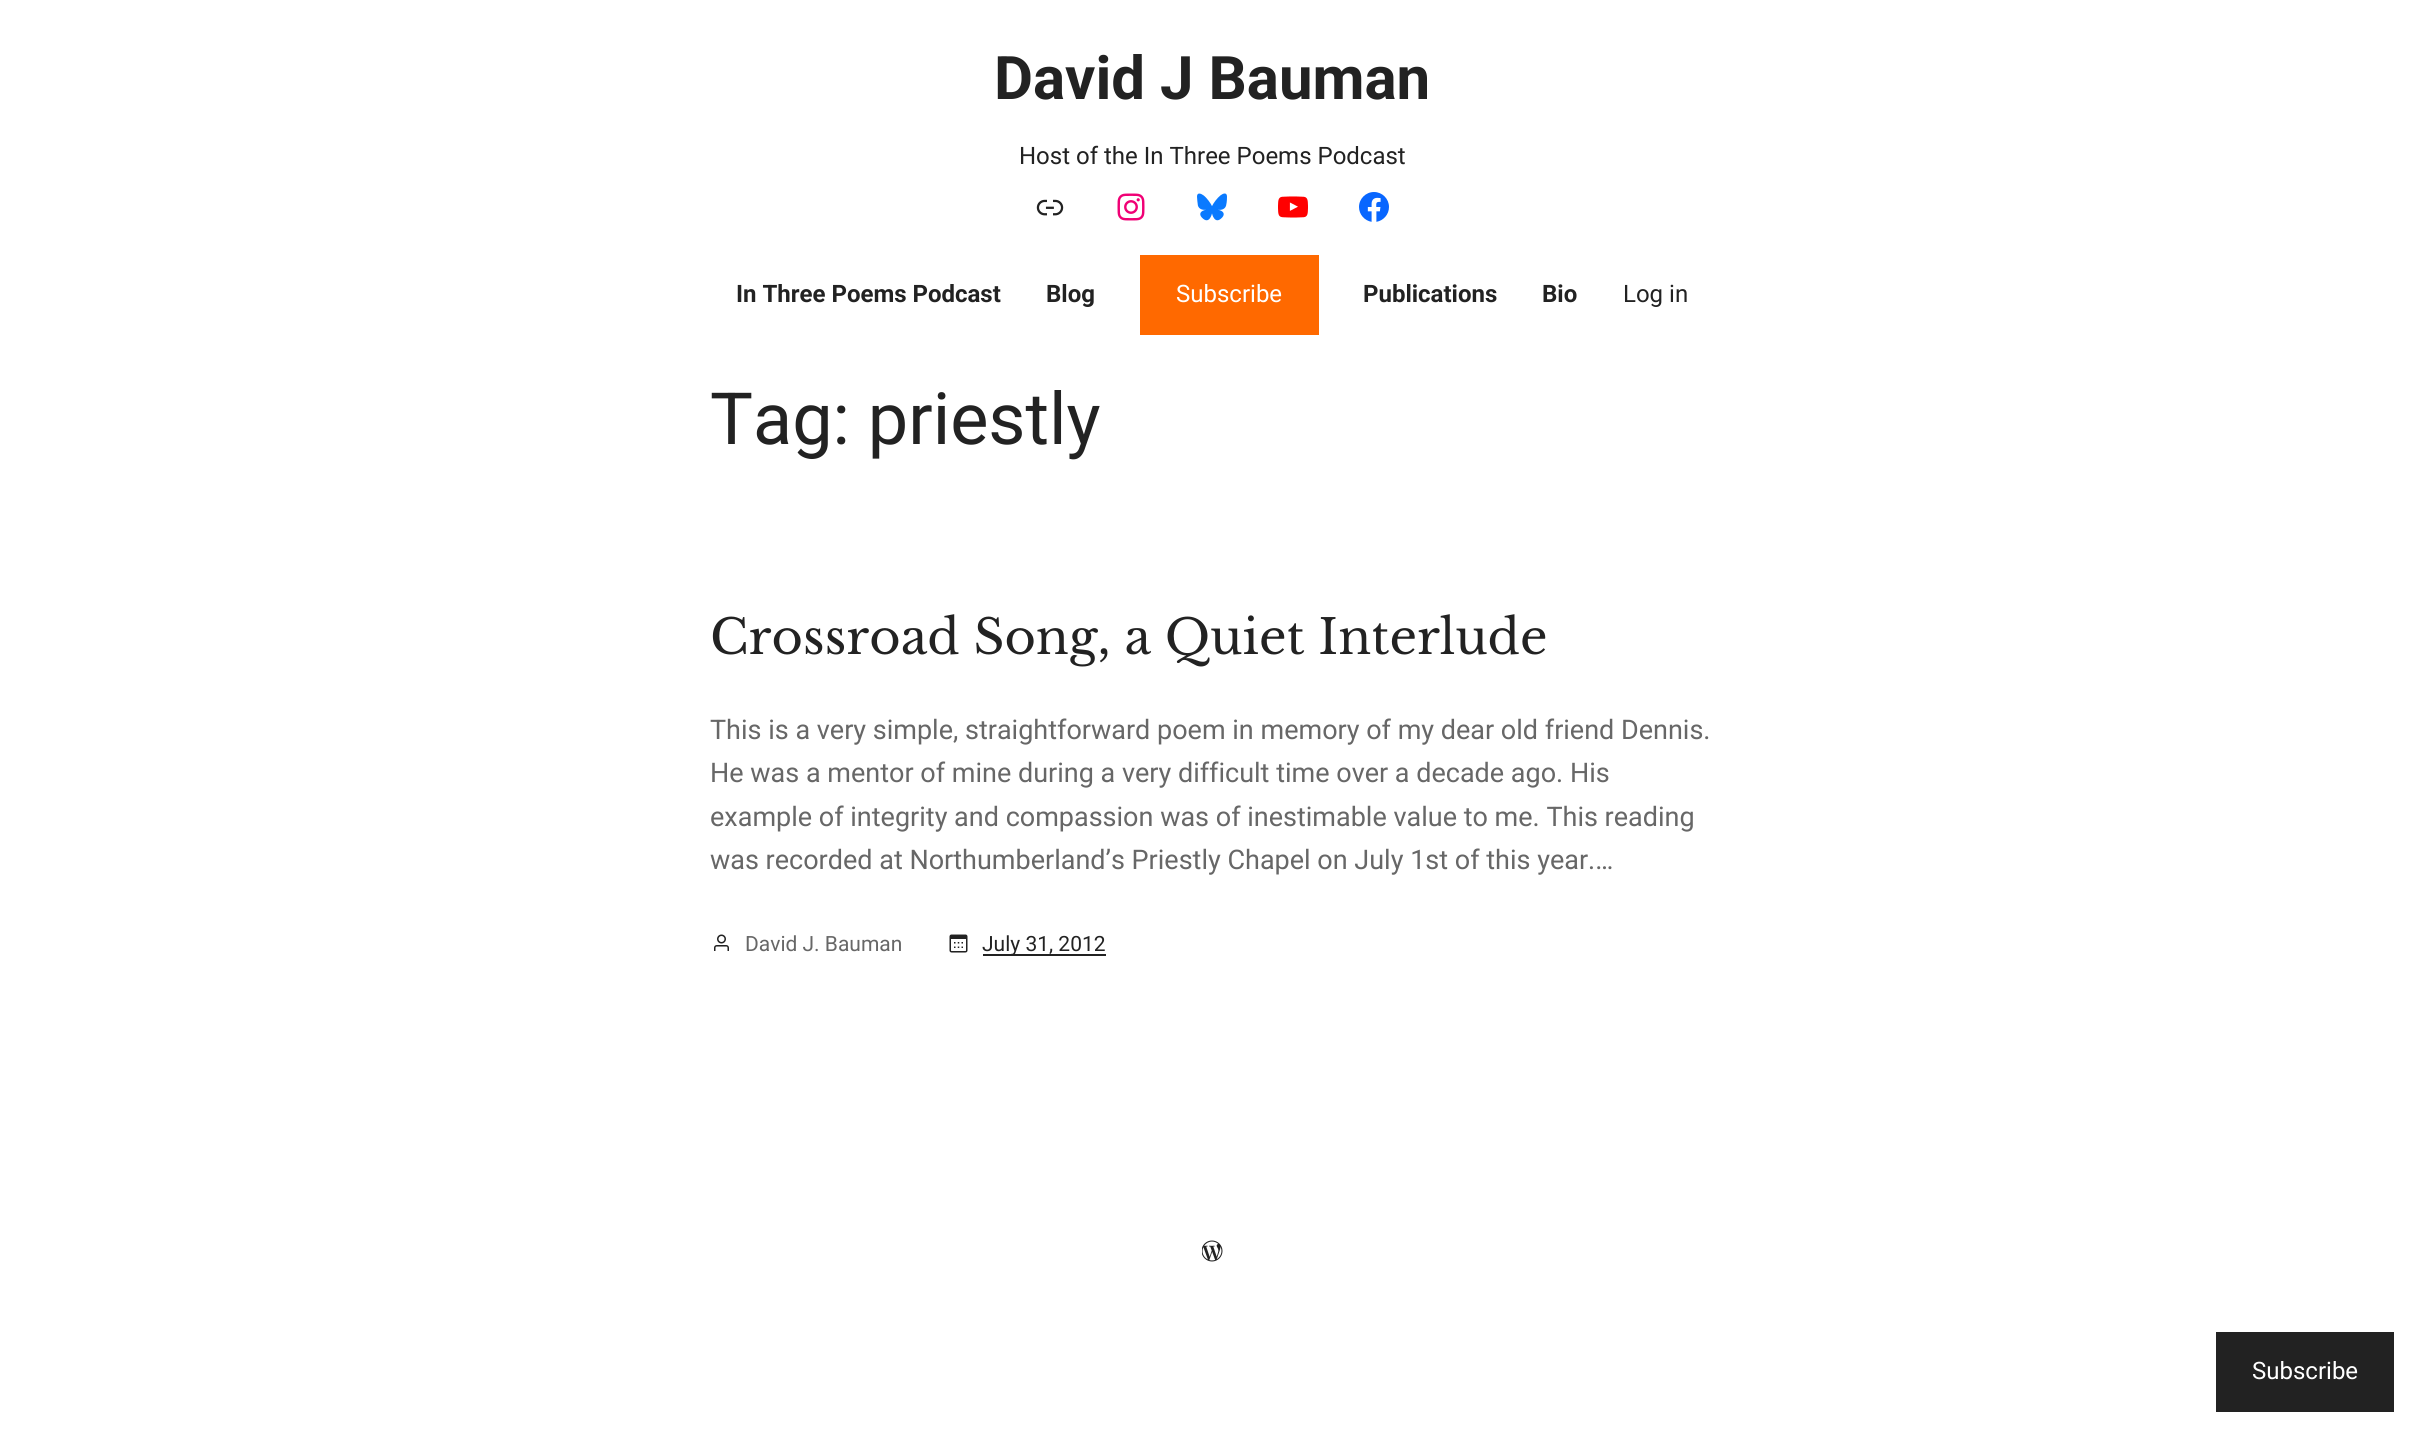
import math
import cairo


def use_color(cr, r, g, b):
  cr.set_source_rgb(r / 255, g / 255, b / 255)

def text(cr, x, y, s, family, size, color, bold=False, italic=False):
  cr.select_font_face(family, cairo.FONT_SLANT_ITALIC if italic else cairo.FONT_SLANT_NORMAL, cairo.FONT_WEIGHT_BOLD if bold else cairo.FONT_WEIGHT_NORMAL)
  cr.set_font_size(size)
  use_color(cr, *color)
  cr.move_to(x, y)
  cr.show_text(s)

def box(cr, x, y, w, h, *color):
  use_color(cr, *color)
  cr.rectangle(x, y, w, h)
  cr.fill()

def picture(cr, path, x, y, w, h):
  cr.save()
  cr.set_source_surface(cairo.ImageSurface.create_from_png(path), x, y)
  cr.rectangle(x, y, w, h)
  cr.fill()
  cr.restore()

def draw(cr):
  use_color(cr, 255, 255, 255)
  cr.paint()
  picture(cr, "img_01.png", 1036, 199, 28, 17)
  picture(cr, "img_02.png", 1117, 193, 28, 28)
  picture(cr, "img_03.png", 1197, 193, 30, 28)
  picture(cr, "img_04.png", 1278, 196, 30, 22)
  picture(cr, "img_05.png", 1359, 192, 30, 30)
  box(cr, 1140, 255, 179, 80, 255, 105, 0)
  picture(cr, "img_06.png", 714, 934, 15, 17)
  picture(cr, "img_07.png", 949, 934, 19, 19)
  box(cr, 983, 954, 123, 2, 34, 34, 34)
  picture(cr, "img_08.png", 1202, 1240, 21, 22)
  box(cr, 2216, 1332, 178, 80, 34, 34, 34)
  text(cr, 994, 99, "David J Bauman", "Roboto", 60, (34, 34, 34), bold=True)
  text(cr, 1019, 164, "Host of the In Three Poems Podcast", "Roboto", 24, (34, 34, 34))
  text(cr, 736, 302, "In Three Poems Podcast", "Roboto", 24, (34, 34, 34), bold=True)
  text(cr, 1046, 302, "Blog", "Roboto", 24, (34, 34, 34), bold=True)
  text(cr, 1176, 302, "Subscribe", "Roboto", 24, (255, 255, 255))
  text(cr, 1363, 302, "Publications", "Roboto", 24, (34, 34, 34), bold=True)
  text(cr, 1542, 302, "Bio", "Roboto", 24, (34, 34, 34), bold=True)
  text(cr, 1623, 302, "Log in", "Roboto", 24, (34, 34, 34))
  text(cr, 710, 444, "Tag: priestly", "Roboto", 72, (34, 34, 34))
  text(cr, 710, 654, "Crossroad Song, a Quiet Interlude", "Libre Baskerville", 48, (34, 34, 34))
  text(cr, 710, 739, "This is a very simple, straightforward poem in memory of my dear old friend Dennis.", "Roboto", 27, (103, 103, 103))
  text(cr, 710, 782, "He was a mentor of mine during a very difficult time over a decade ago. His", "Roboto", 27, (103, 103, 103))
  text(cr, 710, 826, "example of integrity and compassion was of inestimable value to me. This reading", "Roboto", 27, (103, 103, 103))
  text(cr, 710, 869, "was recorded at Northumberland’s Priestly Chapel on July 1st of this year.…", "Roboto", 27, (103, 103, 103))
  text(cr, 745, 951, "David J. Bauman", "Roboto", 21, (103, 103, 103))
  text(cr, 982, 951, "July 31, 2012", "Roboto", 21, (34, 34, 34))
  text(cr, 2252, 1379, "Subscribe", "Roboto", 24, (255, 255, 255))


surface = cairo.ImageSurface(cairo.FORMAT_RGB24, 2423, 1441)
cr = cairo.Context(surface)
options = cairo.FontOptions()
options.set_hint_metrics(cairo.HINT_METRICS_OFF)
options.set_hint_style(cairo.HINT_STYLE_NONE)
cr.set_font_options(options)
cr.set_miter_limit(4)
draw(cr)
surface.write_to_png("out.png")
